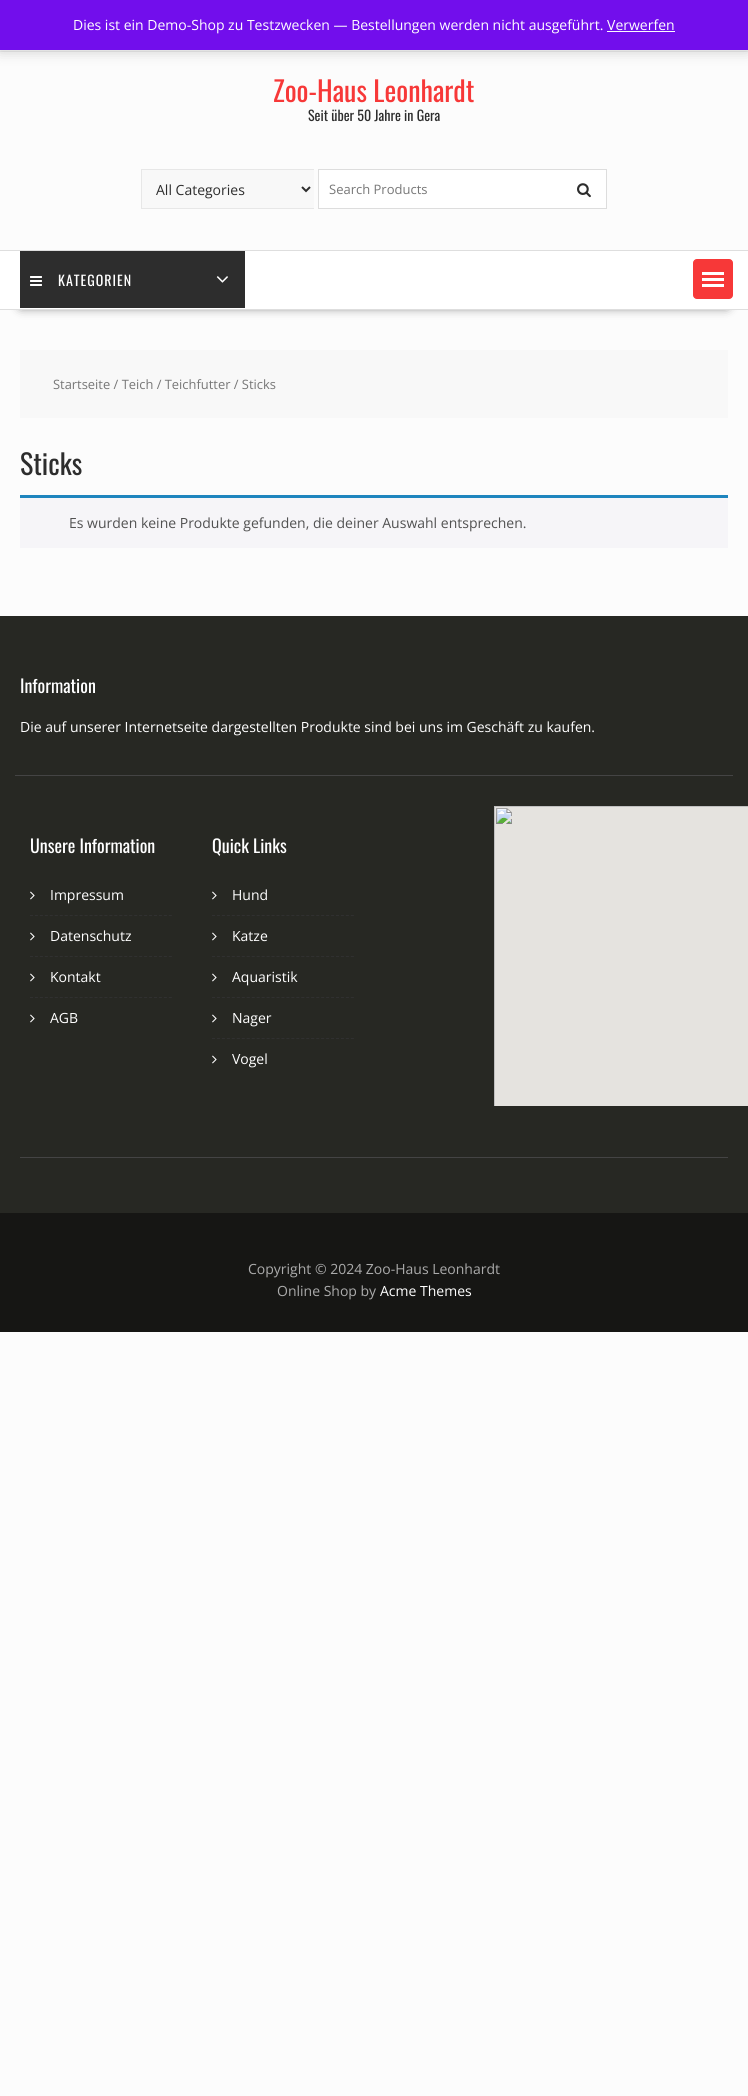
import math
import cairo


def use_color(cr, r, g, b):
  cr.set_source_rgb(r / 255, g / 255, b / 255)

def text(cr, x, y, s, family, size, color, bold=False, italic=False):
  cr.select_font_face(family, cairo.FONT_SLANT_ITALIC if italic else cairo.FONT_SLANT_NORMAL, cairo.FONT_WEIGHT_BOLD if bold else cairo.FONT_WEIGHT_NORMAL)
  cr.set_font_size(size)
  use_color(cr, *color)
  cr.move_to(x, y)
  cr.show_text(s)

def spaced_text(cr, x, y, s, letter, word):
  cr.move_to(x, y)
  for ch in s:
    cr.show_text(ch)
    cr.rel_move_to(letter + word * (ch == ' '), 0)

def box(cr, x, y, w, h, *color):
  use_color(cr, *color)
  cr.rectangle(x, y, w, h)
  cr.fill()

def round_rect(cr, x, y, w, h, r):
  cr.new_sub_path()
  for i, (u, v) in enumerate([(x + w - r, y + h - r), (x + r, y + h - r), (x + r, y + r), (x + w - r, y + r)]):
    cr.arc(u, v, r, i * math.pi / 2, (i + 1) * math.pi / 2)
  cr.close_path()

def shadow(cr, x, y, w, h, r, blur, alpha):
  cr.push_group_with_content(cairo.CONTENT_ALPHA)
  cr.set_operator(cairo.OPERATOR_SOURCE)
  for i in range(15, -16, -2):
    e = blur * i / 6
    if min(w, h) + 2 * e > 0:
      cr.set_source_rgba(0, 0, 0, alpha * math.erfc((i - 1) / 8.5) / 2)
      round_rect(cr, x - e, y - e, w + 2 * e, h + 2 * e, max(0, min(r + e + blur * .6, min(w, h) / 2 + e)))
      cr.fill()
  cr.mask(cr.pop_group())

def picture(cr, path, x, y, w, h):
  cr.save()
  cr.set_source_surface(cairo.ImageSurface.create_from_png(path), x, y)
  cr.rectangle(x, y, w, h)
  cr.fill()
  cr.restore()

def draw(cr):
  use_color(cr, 252, 252, 252)
  cr.paint()
  box(cr, 0, 51, 748, 1, 238, 238, 238)
  use_color(cr, 0, 0, 0)
  shadow(cr, 0, 1, 748, 50, 0, 7, 0.2)
  box(cr, 0, 0, 748, 50, 114, 14, 236)
  box(cr, 142, 170, 172, 38, 248, 248, 248)
  box(cr, 141, 169, 173, 1, 231, 231, 231)
  box(cr, 141, 208, 173, 1, 231, 231, 231)
  box(cr, 141, 169, 1, 40, 231, 231, 231)
  cr.new_path()
  cr.move_to(302, 187)
  cr.line_to(306, 191)
  cr.line_to(310, 187)
  use_color(cr, 45, 45, 45)
  cr.stroke()
  use_color(cr, 255, 255, 255)
  cr.rectangle(318.5, 169.5, 288, 39)
  cr.fill_preserve()
  use_color(cr, 221, 221, 221)
  cr.set_line_width(1)
  cr.stroke()
  picture(cr, "img_01.png", 577, 183, 14, 15)
  use_color(cr, 0, 0, 0)
  shadow(cr, 21, 288, 706, 18, 0, 5.5, 0.75)
  box(cr, 0, 251, 748, 58, 255, 255, 255)
  box(cr, 0, 250, 748, 1, 222, 222, 222)
  box(cr, 0, 309, 748, 1, 222, 222, 222)
  box(cr, 20, 251, 225, 57, 45, 45, 45)
  picture(cr, "img_02.png", 30, 276, 12, 10)
  picture(cr, "img_03.png", 216, 276, 12, 7)
  use_color(cr, 247, 56, 56)
  round_rect(cr, 693.5, 259.5, 39, 39, 3.5)
  cr.fill_preserve()
  cr.stroke()
  box(cr, 702, 284, 22, 3, 255, 255, 255)
  box(cr, 702, 278, 22, 3, 255, 255, 255)
  box(cr, 702, 272, 22, 3, 255, 255, 255)
  box(cr, 20, 350, 708, 68, 248, 248, 248)
  box(cr, 20, 498, 708, 50, 246, 245, 248)
  box(cr, 20, 495, 708, 3, 30, 133, 190)
  box(cr, 0, 616, 748, 597, 39, 40, 35)
  box(cr, 15, 775, 718, 1, 68, 68, 68)
  box(cr, 20, 1157, 708, 1, 68, 68, 68)
  picture(cr, "img_04.png", 30, 891, 5, 9)
  cr.new_path()
  cr.move_to(30, 915.5)
  cr.line_to(172, 915.5)
  use_color(cr, 48, 48, 48)
  cr.set_dash([3, 1.96])
  cr.stroke()
  picture(cr, "img_04.png", 30, 932, 5, 9)
  cr.new_path()
  cr.move_to(30, 956.5)
  cr.line_to(172, 956.5)
  cr.stroke()
  picture(cr, "img_04.png", 30, 973, 5, 9)
  cr.new_path()
  cr.move_to(30, 997.5)
  cr.line_to(172, 997.5)
  cr.stroke()
  picture(cr, "img_04.png", 30, 1014, 5, 9)
  picture(cr, "img_04.png", 212, 891, 5, 9)
  cr.new_path()
  cr.move_to(212, 915.5)
  cr.line_to(354, 915.5)
  cr.stroke()
  picture(cr, "img_04.png", 212, 932, 5, 9)
  cr.new_path()
  cr.move_to(212, 956.5)
  cr.line_to(354, 956.5)
  cr.stroke()
  picture(cr, "img_04.png", 212, 973, 5, 9)
  cr.new_path()
  cr.move_to(212, 997.5)
  cr.line_to(354, 997.5)
  cr.stroke()
  picture(cr, "img_04.png", 212, 1014, 5, 9)
  cr.new_path()
  cr.move_to(212, 1038.5)
  cr.line_to(354, 1038.5)
  cr.stroke()
  picture(cr, "img_04.png", 212, 1055, 5, 9)
  picture(cr, "img_05.png", 494, 806, 254, 300)
  box(cr, 0, 1213, 748, 119, 22, 22, 20)
  text(cr, 73, 30, "Dies ist ein Demo-Shop zu Testzwecken — Bestellungen werden nicht ausgeführt. Verwerfen", "Open Sans", 14, (255, 255, 255))
  box(cr, 607, 31, 68, 1, 252, 251, 254)
  text(cr, 273, 102, "Zoo-Haus Leonhardt", "Oswald", 28, (247, 56, 56))
  text(cr, 308, 121, "Seit über 50 Jahre in Gera", "Oswald", 14, (45, 45, 45))
  text(cr, 156, 195, "All Categories", "Open Sans", 14, (45, 45, 45))
  text(cr, 329, 194, "Search Products", "Open Sans", 13, (119, 119, 119))
  cr.select_font_face("Oswald")
  cr.set_font_size(14)
  use_color(cr, 255, 255, 255)
  spaced_text(cr, 58, 286, "KATEGORIEN", 1, 0)
  text(cr, 53, 389, "Startseite / Teich / Teichfutter / Sticks", "Open Sans", 12.9, (119, 119, 119))
  text(cr, 20, 475, "Sticks", "Oswald", 28, (45, 45, 45))
  text(cr, 69, 528, "Es wurden keine Produkte gefunden, die deiner Auswahl entsprechen.", "Open Sans", 14, (81, 81, 81))
  text(cr, 20, 693, "Information", "Oswald", 18, (255, 255, 255))
  text(cr, 20, 732, "Die auf unserer Internetseite dargestellten Produkte sind bei uns im Geschäft zu kaufen.", "Open Sans", 14, (255, 255, 255))
  text(cr, 30, 853, "Unsere Information", "Oswald", 18, (255, 255, 255))
  text(cr, 50, 900, "Impressum", "Open Sans", 14, (255, 255, 255))
  text(cr, 50, 941, "Datenschutz", "Open Sans", 14, (255, 255, 255))
  text(cr, 50, 982, "Kontakt", "Open Sans", 14, (255, 255, 255))
  text(cr, 50, 1023, "AGB", "Open Sans", 14, (255, 255, 255))
  text(cr, 212, 853, "Quick Links", "Oswald", 18, (255, 255, 255))
  text(cr, 232, 900, "Hund", "Open Sans", 14, (255, 255, 255))
  text(cr, 232, 941, "Katze", "Open Sans", 14, (255, 255, 255))
  text(cr, 232, 982, "Aquaristik", "Open Sans", 14, (255, 255, 255))
  text(cr, 232, 1023, "Nager", "Open Sans", 14, (255, 255, 255))
  text(cr, 232, 1064, "Vogel", "Open Sans", 14, (255, 255, 255))
  text(cr, 248, 1274, "Copyright © 2024 Zoo-Haus Leonhardt", "Open Sans", 14, (171, 171, 171))
  text(cr, 277, 1296, "Online Shop by", "Open Sans", 14, (171, 171, 171))
  text(cr, 380, 1296, "Acme Themes", "Open Sans", 14, (255, 255, 255))


surface = cairo.ImageSurface(cairo.FORMAT_RGB24, 748, 2096)
cr = cairo.Context(surface)
options = cairo.FontOptions()
options.set_hint_metrics(cairo.HINT_METRICS_OFF)
options.set_hint_style(cairo.HINT_STYLE_NONE)
cr.set_font_options(options)
cr.set_miter_limit(4)
draw(cr)
surface.write_to_png("out.png")
